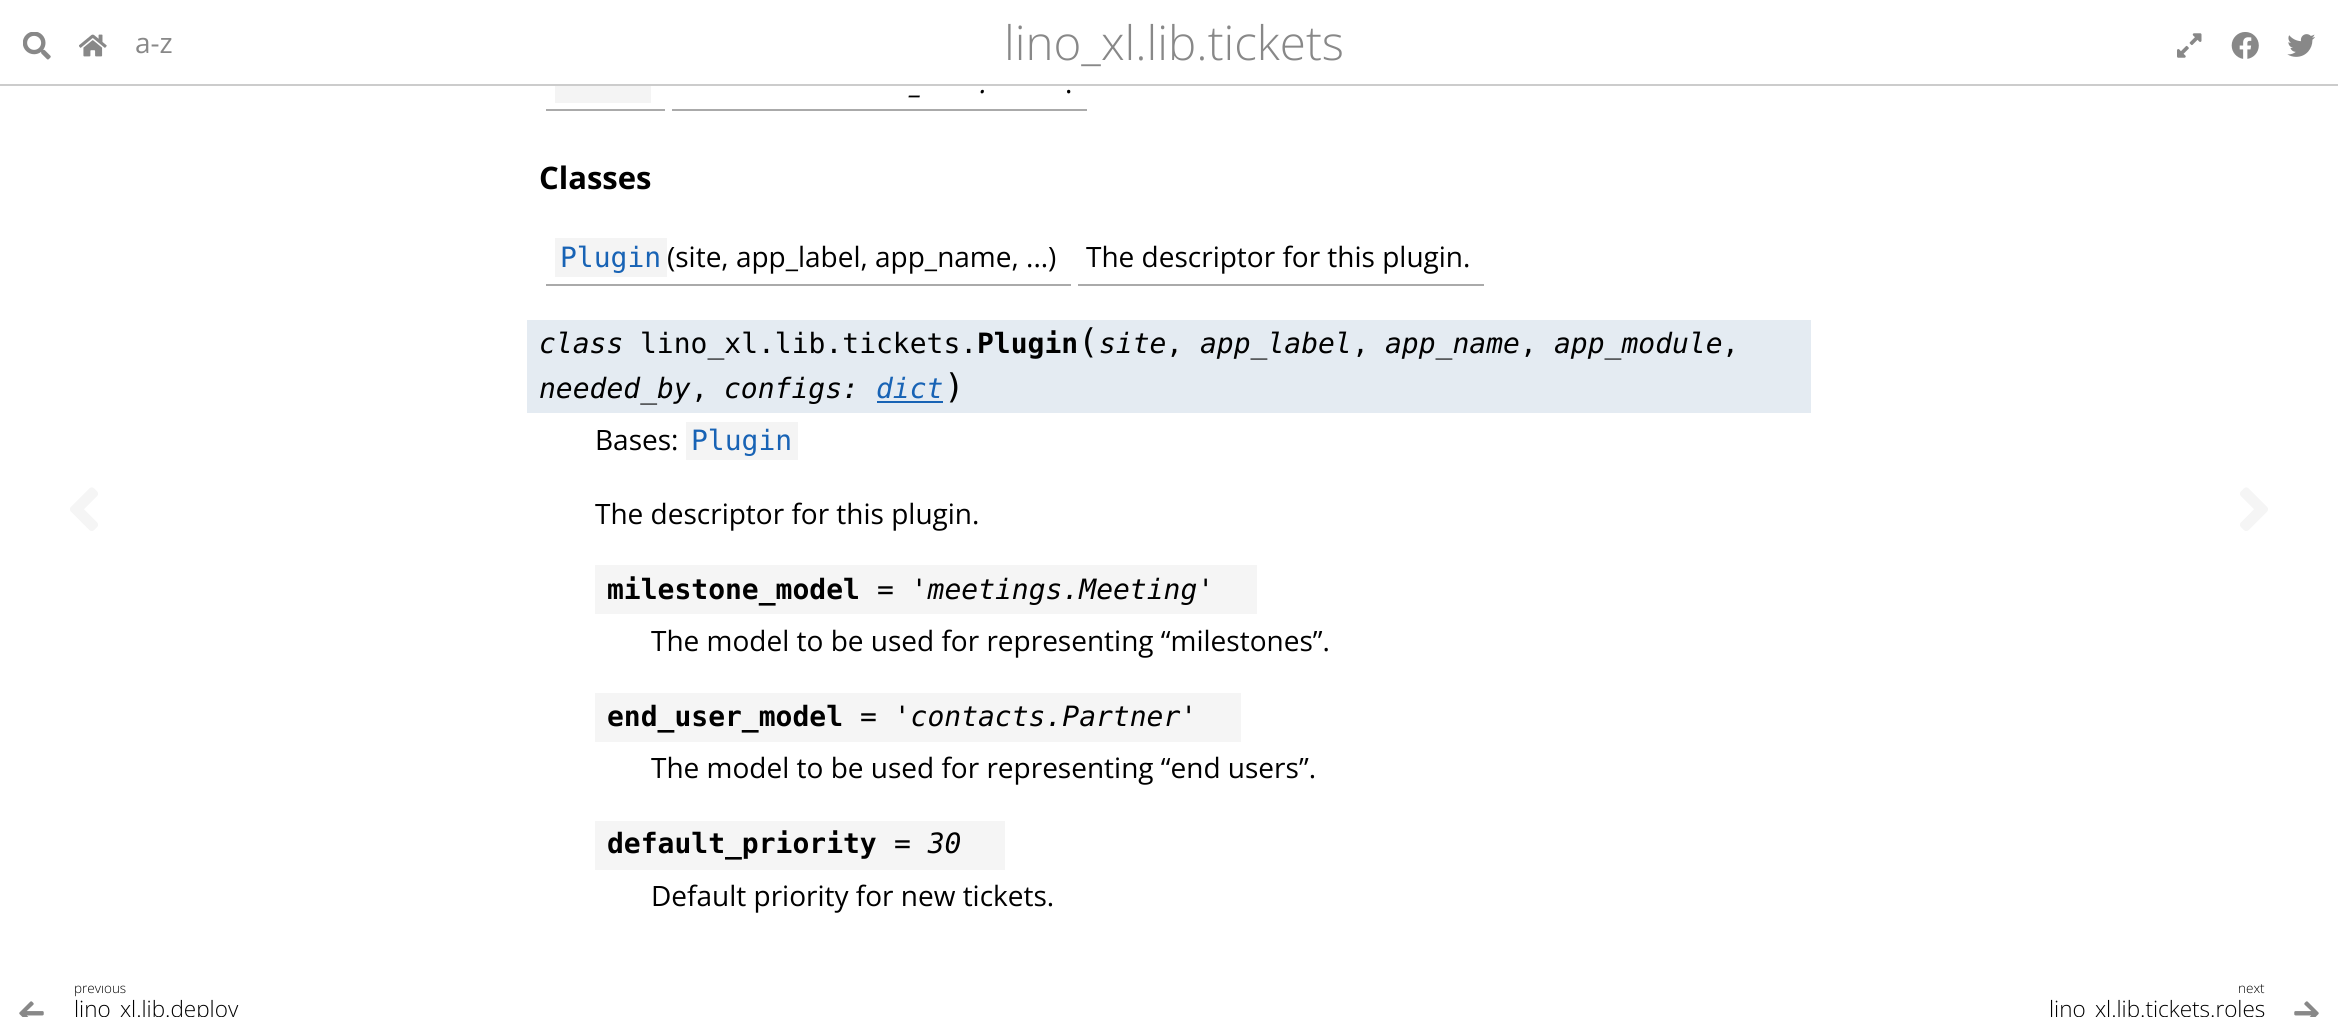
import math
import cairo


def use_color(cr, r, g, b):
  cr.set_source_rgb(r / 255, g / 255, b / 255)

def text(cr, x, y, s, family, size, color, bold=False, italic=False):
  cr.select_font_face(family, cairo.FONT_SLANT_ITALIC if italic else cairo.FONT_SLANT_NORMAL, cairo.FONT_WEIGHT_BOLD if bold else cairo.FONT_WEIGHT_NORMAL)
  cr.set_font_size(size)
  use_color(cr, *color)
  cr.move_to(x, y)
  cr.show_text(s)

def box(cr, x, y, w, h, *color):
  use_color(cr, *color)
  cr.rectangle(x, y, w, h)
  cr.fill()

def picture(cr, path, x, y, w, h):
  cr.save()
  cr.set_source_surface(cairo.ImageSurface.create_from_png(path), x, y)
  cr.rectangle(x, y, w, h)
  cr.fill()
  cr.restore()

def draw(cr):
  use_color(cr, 255, 255, 255)
  cr.paint()
  box(cr, 0, 84, 2338, 2, 204, 204, 204)
  picture(cr, "img_01.png", 23, 32, 28, 28)
  picture(cr, "img_02.png", 79, 34, 28, 23)
  picture(cr, "img_03.png", 2177, 33, 25, 25)
  picture(cr, "img_04.png", 2231, 32, 28, 27)
  picture(cr, "img_05.png", 2287, 34, 28, 23)
  box(cr, 546, 109, 119, 2, 170, 170, 170)
  box(cr, 555, 86, 96, 17, 244, 244, 244)
  box(cr, 672, 109, 415, 2, 170, 170, 170)
  box(cr, 546, 284, 525, 2, 170, 170, 170)
  box(cr, 555, 238, 112, 39, 244, 244, 244)
  box(cr, 1078, 284, 406, 2, 170, 170, 170)
  box(cr, 527, 320, 1284, 93, 228, 235, 242)
  box(cr, 877, 401, 66, 2, 24, 99, 181)
  box(cr, 686, 422, 112, 38, 244, 244, 244)
  box(cr, 595, 565, 662, 49, 245, 245, 245)
  box(cr, 595, 693, 646, 49, 245, 245, 245)
  box(cr, 595, 821, 410, 49, 245, 245, 245)
  picture(cr, "img_06.png", 70, 487, 28, 44)
  picture(cr, "img_07.png", 2240, 487, 28, 44)
  picture(cr, "img_08.png", 19, 1001, 25, 16)
  picture(cr, "img_09.png", 2294, 1001, 25, 16)
  text(cr, 135, 53, "a-z", "Open Sans", 28, (136, 136, 136))
  text(cr, 1004, 60, "lino_xl.lib.tickets", "Open Sans Light", 47.5, (136, 136, 136))
  text(cr, 980, 93, ".", "Open Sans", 28, (0, 0, 0), italic=True)
  text(cr, 1065, 93, ".", "Open Sans", 28, (0, 0, 0))
  text(cr, 911, 93, "_", "Open Sans", 28, (0, 0, 0), italic=True)
  text(cr, 539, 189, "Classes", "Open Sans", 31, (0, 0, 0), bold=True)
  text(cr, 560, 267, "Plugin", "DejaVu Sans Mono", 28, (24, 99, 181))
  text(cr, 667, 267, "(site, app_label, app_name, ...)", "Open Sans", 28, (0, 0, 0))
  text(cr, 1086, 267, "The descriptor for this plugin.", "Open Sans", 28, (0, 0, 0))
  text(cr, 539, 353, "class", "DejaVu Sans Mono", 28, (0, 0, 0), italic=True)
  text(cr, 640, 353, "lino_xl.lib.tickets.", "DejaVu Sans Mono", 28, (0, 0, 0))
  text(cr, 977, 353, "Plugin", "DejaVu Sans Mono", 28, (0, 0, 0), bold=True)
  text(cr, 1078, 353, "(", "DejaVu Sans Mono", 34, (0, 0, 0))
  text(cr, 1099, 353, "site", "DejaVu Sans Mono", 28, (0, 0, 0), italic=True)
  text(cr, 1166, 353, ",", "DejaVu Sans Mono", 28, (0, 0, 0))
  text(cr, 1200, 353, "app_label", "DejaVu Sans Mono", 28, (0, 0, 0), italic=True)
  text(cr, 1352, 353, ",", "DejaVu Sans Mono", 28, (0, 0, 0))
  text(cr, 1385, 353, "app_name", "DejaVu Sans Mono", 28, (0, 0, 0), italic=True)
  text(cr, 1520, 353, ",", "DejaVu Sans Mono", 28, (0, 0, 0))
  text(cr, 1554, 353, "app_module", "DejaVu Sans Mono", 28, (0, 0, 0), italic=True)
  text(cr, 1722, 353, ",", "DejaVu Sans Mono", 28, (0, 0, 0))
  text(cr, 539, 398, "needed_by", "DejaVu Sans Mono", 28, (0, 0, 0), italic=True)
  text(cr, 691, 398, ",", "DejaVu Sans Mono", 28, (0, 0, 0))
  text(cr, 724, 398, "configs:", "DejaVu Sans Mono", 28, (0, 0, 0), italic=True)
  text(cr, 876, 398, "dict", "DejaVu Sans Mono", 28, (24, 99, 181), italic=True)
  text(cr, 944, 398, ")", "DejaVu Sans Mono", 34, (0, 0, 0))
  text(cr, 595, 450, "Bases:", "Open Sans", 28, (0, 0, 0))
  text(cr, 691, 450, "Plugin", "DejaVu Sans Mono", 28, (24, 99, 181))
  text(cr, 595, 524, "The descriptor for this plugin.", "Open Sans", 28, (0, 0, 0))
  text(cr, 607, 599, "milestone_model", "DejaVu Sans Mono", 28, (0, 0, 0), bold=True)
  text(cr, 877, 599, "= 'meetings.Meeting'", "DejaVu Sans Mono", 28, (0, 0, 0), italic=True)
  text(cr, 651, 651, "The model to be used for representing “milestones”.", "Open Sans", 28, (0, 0, 0))
  text(cr, 607, 726, "end_user_model", "DejaVu Sans Mono", 28, (0, 0, 0), bold=True)
  text(cr, 860, 726, "= 'contacts.Partner'", "DejaVu Sans Mono", 28, (0, 0, 0), italic=True)
  text(cr, 651, 778, "The model to be used for representing “end users”.", "Open Sans", 28, (0, 0, 0))
  text(cr, 607, 853, "default_priority", "DejaVu Sans Mono", 28, (0, 0, 0), bold=True)
  text(cr, 894, 853, "= 30", "DejaVu Sans Mono", 28, (0, 0, 0), italic=True)
  text(cr, 651, 906, "Default priority for new tickets.", "Open Sans", 28, (0, 0, 0))
  cr.save()
  cr.rectangle(74, 985, 1095, 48)
  cr.clip()
  text(cr, 74, 993, "previous", "Open Sans Light", 13.5, (0, 0, 0))
  cr.restore()
  text(cr, 74, 1017, "lino_xl.lib.deploy", "Open Sans Light", 22.5, (0, 0, 0))
  text(cr, 2238, 993, "next", "Open Sans Light", 13.5, (0, 0, 0))
  text(cr, 2049, 1017, "lino_xl.lib.tickets.roles", "Open Sans Light", 22.5, (0, 0, 0))


surface = cairo.ImageSurface(cairo.FORMAT_RGB24, 2338, 1017)
cr = cairo.Context(surface)
options = cairo.FontOptions()
options.set_hint_metrics(cairo.HINT_METRICS_OFF)
options.set_hint_style(cairo.HINT_STYLE_NONE)
cr.set_font_options(options)
cr.set_miter_limit(4)
draw(cr)
surface.write_to_png("out.png")
